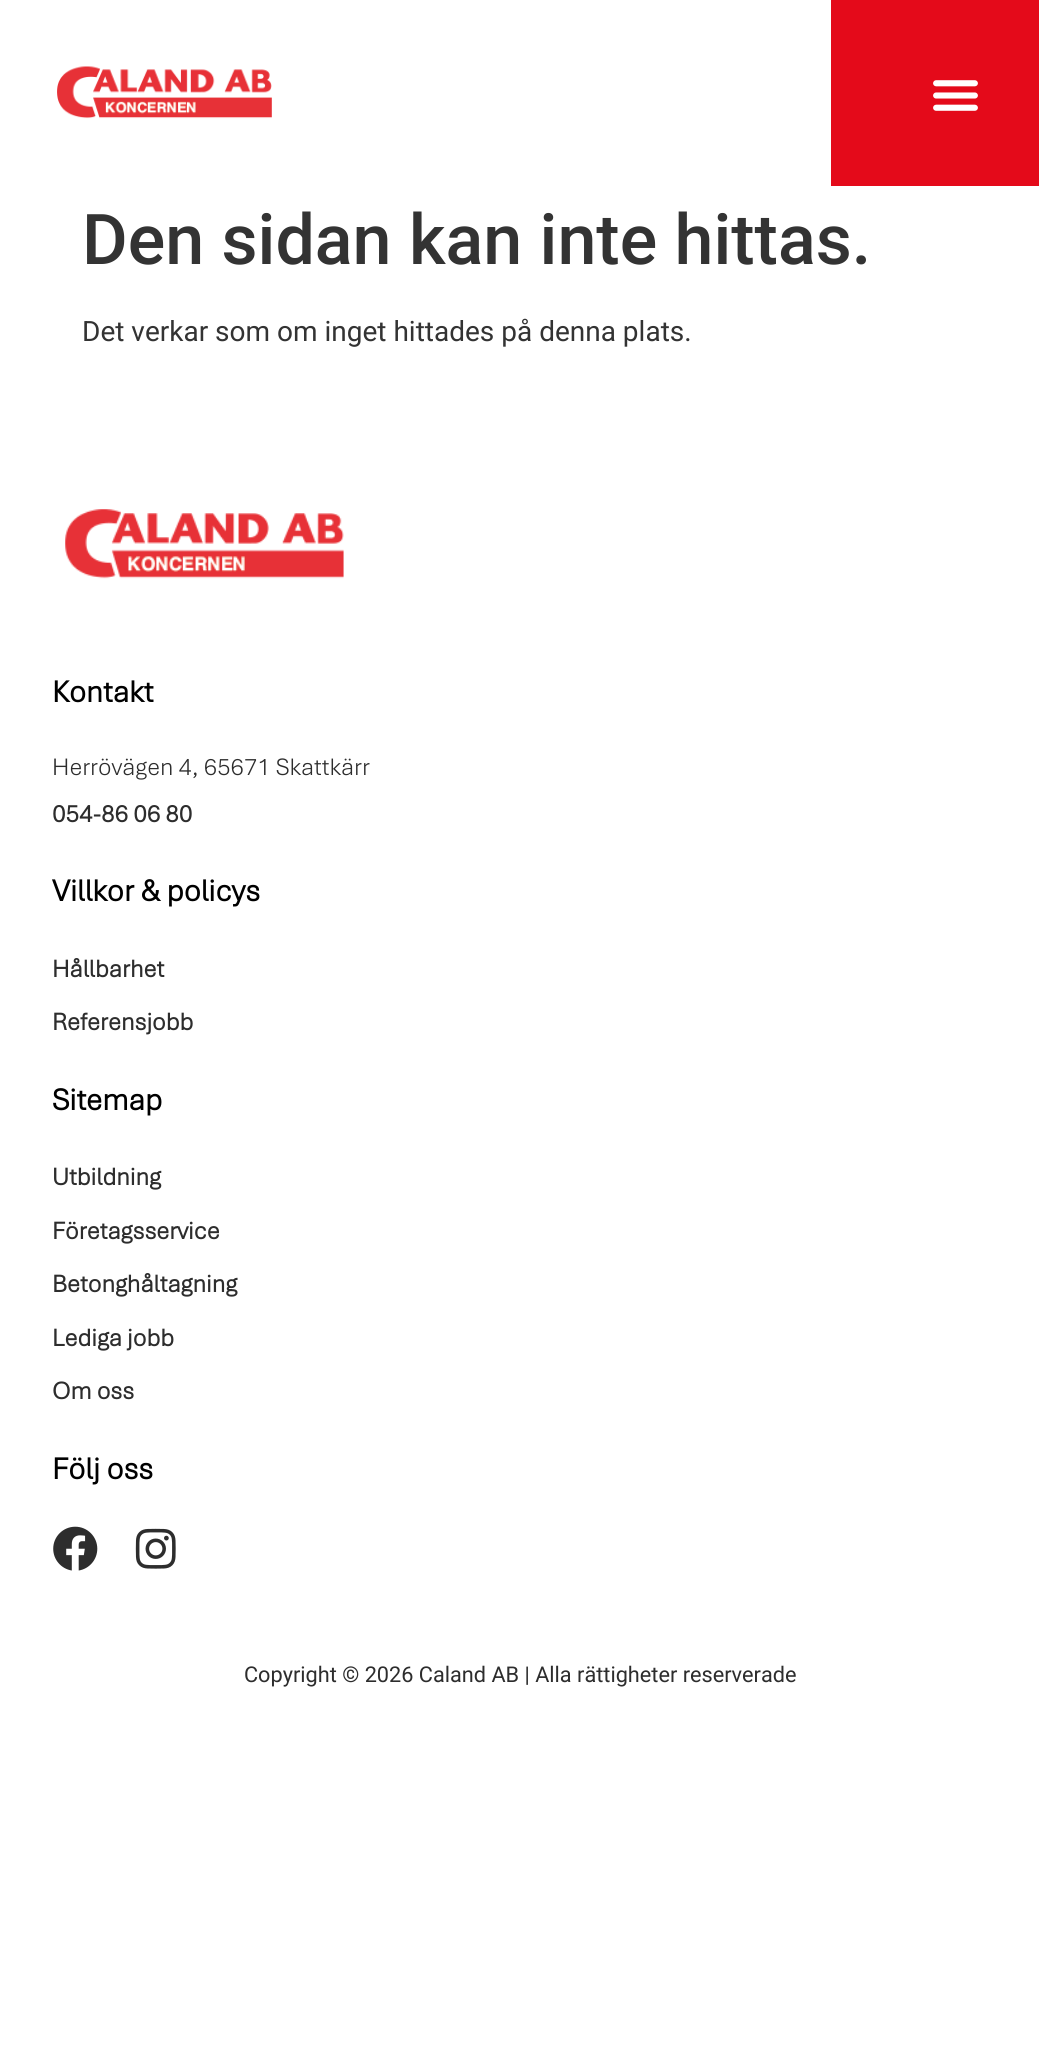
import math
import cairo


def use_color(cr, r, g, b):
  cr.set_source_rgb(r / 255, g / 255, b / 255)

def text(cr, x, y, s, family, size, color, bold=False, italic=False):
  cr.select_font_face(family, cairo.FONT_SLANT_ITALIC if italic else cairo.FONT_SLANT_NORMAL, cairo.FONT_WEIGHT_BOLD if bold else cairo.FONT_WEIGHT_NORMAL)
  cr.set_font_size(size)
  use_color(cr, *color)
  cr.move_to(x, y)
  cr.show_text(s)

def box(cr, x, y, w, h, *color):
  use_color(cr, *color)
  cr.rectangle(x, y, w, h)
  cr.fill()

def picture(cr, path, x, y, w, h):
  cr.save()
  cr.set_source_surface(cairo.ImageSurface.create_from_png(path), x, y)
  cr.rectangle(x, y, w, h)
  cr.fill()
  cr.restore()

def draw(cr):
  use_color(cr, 255, 255, 255)
  cr.paint()
  box(cr, 831, 0, 208, 186, 228, 10, 26)
  picture(cr, "img_01.png", 57, 66, 215, 53)
  picture(cr, "img_02.png", 933, 80, 45, 31)
  picture(cr, "img_03.png", 65, 509, 279, 70)
  picture(cr, "img_04.png", 53, 1526, 45, 45)
  picture(cr, "img_05.png", 135, 1528, 41, 41)
  text(cr, 82, 264, "Den sidan kan inte hittas.", "Roboto Medium", 70, (51, 51, 51))
  text(cr, 82, 341, "Det verkar som om inget hittades på denna plats.", "Roboto", 28, (51, 51, 51))
  text(cr, 52, 702, "Kontakt", "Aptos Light", 31.5, (0, 0, 0), bold=True)
  text(cr, 52, 775, "Herrövägen 4, 65671 Skattkärr", "Aptos Light Light", 25, (45, 45, 45))
  text(cr, 52, 822, "054-86 06 80", "Aptos Light", 25.25, (45, 45, 45), bold=True)
  text(cr, 52, 901, "Villkor & policys", "Aptos Light", 31.5, (0, 0, 0), bold=True)
  text(cr, 52, 977, "Hållbarhet", "Aptos Light", 25.25, (45, 45, 45), bold=True)
  text(cr, 52, 1030, "Referensjobb", "Aptos Light", 25.25, (45, 45, 45), bold=True)
  text(cr, 52, 1110, "Sitemap", "Aptos Light", 31.5, (0, 0, 0), bold=True)
  text(cr, 52, 1185, "Utbildning", "Aptos Light", 25.25, (45, 45, 45), bold=True)
  text(cr, 52, 1239, "Företagsservice", "Aptos Light", 25.25, (45, 45, 45), bold=True)
  text(cr, 52, 1292, "Betonghåltagning", "Aptos Light", 25.25, (45, 45, 45), bold=True)
  text(cr, 52, 1346, "Lediga jobb", "Aptos Light", 25.25, (45, 45, 45), bold=True)
  text(cr, 52, 1399, "Om oss", "Aptos Light", 25.25, (45, 45, 45), bold=True)
  text(cr, 52, 1479, "Följ oss", "Aptos Light", 31.5, (0, 0, 0), bold=True)
  text(cr, 244, 1682, "Copyright © 2026 Caland AB | Alla rättigheter reserverade", "Roboto", 21.7, (45, 45, 45))


surface = cairo.ImageSurface(cairo.FORMAT_RGB24, 1039, 2059)
cr = cairo.Context(surface)
options = cairo.FontOptions()
options.set_hint_metrics(cairo.HINT_METRICS_OFF)
options.set_hint_style(cairo.HINT_STYLE_NONE)
cr.set_font_options(options)
cr.set_miter_limit(4)
draw(cr)
surface.write_to_png("out.png")
